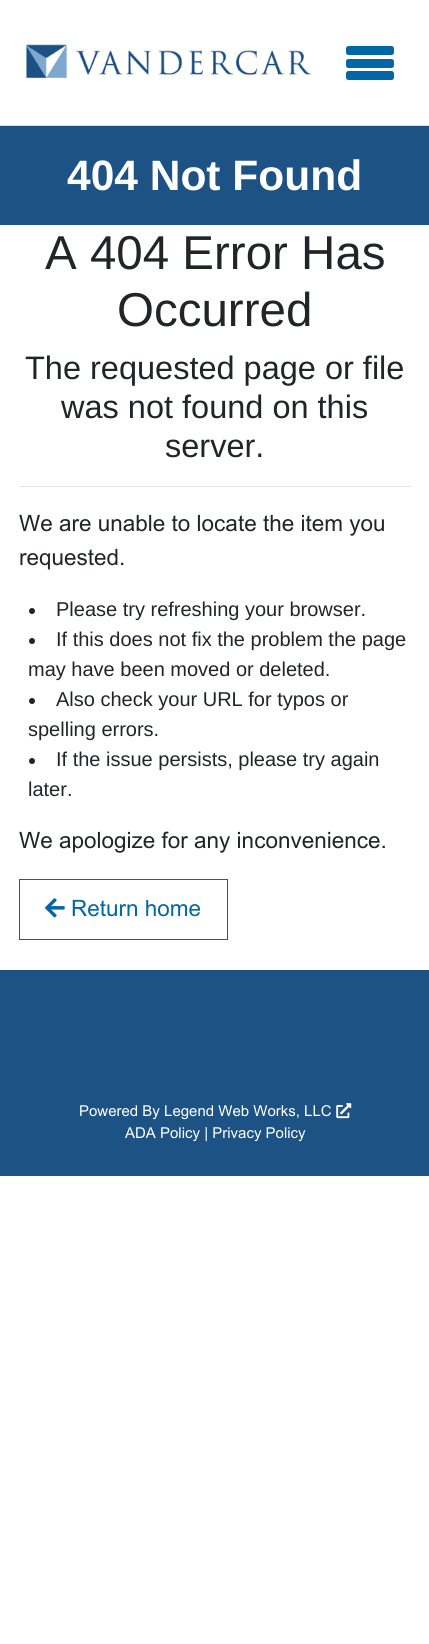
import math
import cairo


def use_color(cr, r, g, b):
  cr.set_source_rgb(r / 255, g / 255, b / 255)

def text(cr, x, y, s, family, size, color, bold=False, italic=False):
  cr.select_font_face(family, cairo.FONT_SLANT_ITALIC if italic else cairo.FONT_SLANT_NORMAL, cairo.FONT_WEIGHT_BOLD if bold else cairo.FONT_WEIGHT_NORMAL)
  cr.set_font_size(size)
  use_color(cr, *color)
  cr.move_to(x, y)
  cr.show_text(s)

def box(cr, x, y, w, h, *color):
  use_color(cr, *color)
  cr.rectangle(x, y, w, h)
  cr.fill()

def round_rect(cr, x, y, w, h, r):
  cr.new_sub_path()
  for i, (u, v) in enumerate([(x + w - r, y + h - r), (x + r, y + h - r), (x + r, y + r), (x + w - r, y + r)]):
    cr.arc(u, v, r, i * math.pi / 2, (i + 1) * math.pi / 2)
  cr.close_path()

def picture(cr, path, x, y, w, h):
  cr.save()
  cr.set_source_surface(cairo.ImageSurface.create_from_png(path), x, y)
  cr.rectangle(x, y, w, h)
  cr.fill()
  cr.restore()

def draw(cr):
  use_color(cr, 255, 255, 255)
  cr.paint()
  box(cr, 0, 125, 429, 1, 221, 221, 221)
  picture(cr, "img_01.png", 26, 44, 286, 35)
  use_color(cr, 3, 103, 166)
  round_rect(cr, 346, 46, 48, 9, 2.5)
  cr.fill()
  round_rect(cr, 346, 59, 48, 9, 2.5)
  cr.fill()
  round_rect(cr, 346, 71, 48, 9, 2.5)
  cr.fill()
  box(cr, 0, 126, 429, 99, 29, 82, 133)
  box(cr, 19, 486, 392, 1, 230, 230, 230)
  use_color(cr, 33, 37, 41)
  cr.arc(32, 611, 3, 0, 2 * math.pi)
  cr.fill()
  cr.arc(32, 641, 3, 0, 2 * math.pi)
  cr.fill()
  cr.arc(32, 701, 3, 0, 2 * math.pi)
  cr.fill()
  cr.arc(32, 761, 3, 0, 2 * math.pi)
  cr.fill()
  cr.rectangle(19.5, 879.5, 208, 60)
  use_color(cr, 3, 103, 166)
  cr.set_line_width(1)
  cr.stroke()
  picture(cr, "img_02.png", 45, 898, 20, 20)
  box(cr, 0, 970, 429, 206, 29, 82, 133)
  picture(cr, "img_03.png", 336, 1103, 16, 16)
  text(cr, 67, 190, "404 Not Found", "Liberation Sans", 42.5, (255, 255, 255), bold=True)
  text(cr, 45, 269, "A 404 Error Has", "Liberation Sans", 47.5, (33, 37, 41))
  text(cr, 117, 326, "Occurred", "Liberation Sans", 47.5, (33, 37, 41))
  text(cr, 25, 379, "The requested page or file", "Liberation Sans", 32.5, (33, 37, 41))
  text(cr, 61, 418, "was not found on this", "Liberation Sans", 32.5, (33, 37, 41))
  text(cr, 165, 457, "server.", "Liberation Sans", 32.5, (33, 37, 41))
  text(cr, 19, 531, "We are unable to locate the item you", "Arial", 22.5, (33, 37, 41))
  text(cr, 19, 565, "requested.", "Arial", 22.5, (33, 37, 41))
  text(cr, 56, 616, "Please try refreshing your browser.", "Liberation Sans", 20, (33, 37, 41))
  text(cr, 56, 646, "If this does not fix the problem the page", "Liberation Sans", 20, (33, 37, 41))
  text(cr, 28, 676, "may have been moved or deleted.", "Liberation Sans", 20, (33, 37, 41))
  text(cr, 56, 706, "Also check your URL for typos or", "Liberation Sans", 20, (33, 37, 41))
  text(cr, 28, 736, "spelling errors.", "Liberation Sans", 20, (33, 37, 41))
  text(cr, 56, 766, "If the issue persists, please try again", "Liberation Sans", 20, (33, 37, 41))
  text(cr, 28, 796, "later.", "Liberation Sans", 20, (33, 37, 41))
  text(cr, 19, 848, "We apologize for any inconvenience.", "Arial", 22.5, (33, 37, 41))
  text(cr, 71, 916, "Return home", "Arial", 22.5, (3, 103, 166))
  text(cr, 79, 1116, "Powered By Legend Web Works, LLC", "Arial", 15, (255, 255, 255))
  text(cr, 125, 1138, "ADA Policy | Privacy Policy", "Arial", 15, (255, 255, 255))


surface = cairo.ImageSurface(cairo.FORMAT_RGB24, 429, 1644)
cr = cairo.Context(surface)
options = cairo.FontOptions()
options.set_hint_metrics(cairo.HINT_METRICS_OFF)
options.set_hint_style(cairo.HINT_STYLE_NONE)
cr.set_font_options(options)
cr.set_miter_limit(4)
draw(cr)
surface.write_to_png("out.png")
